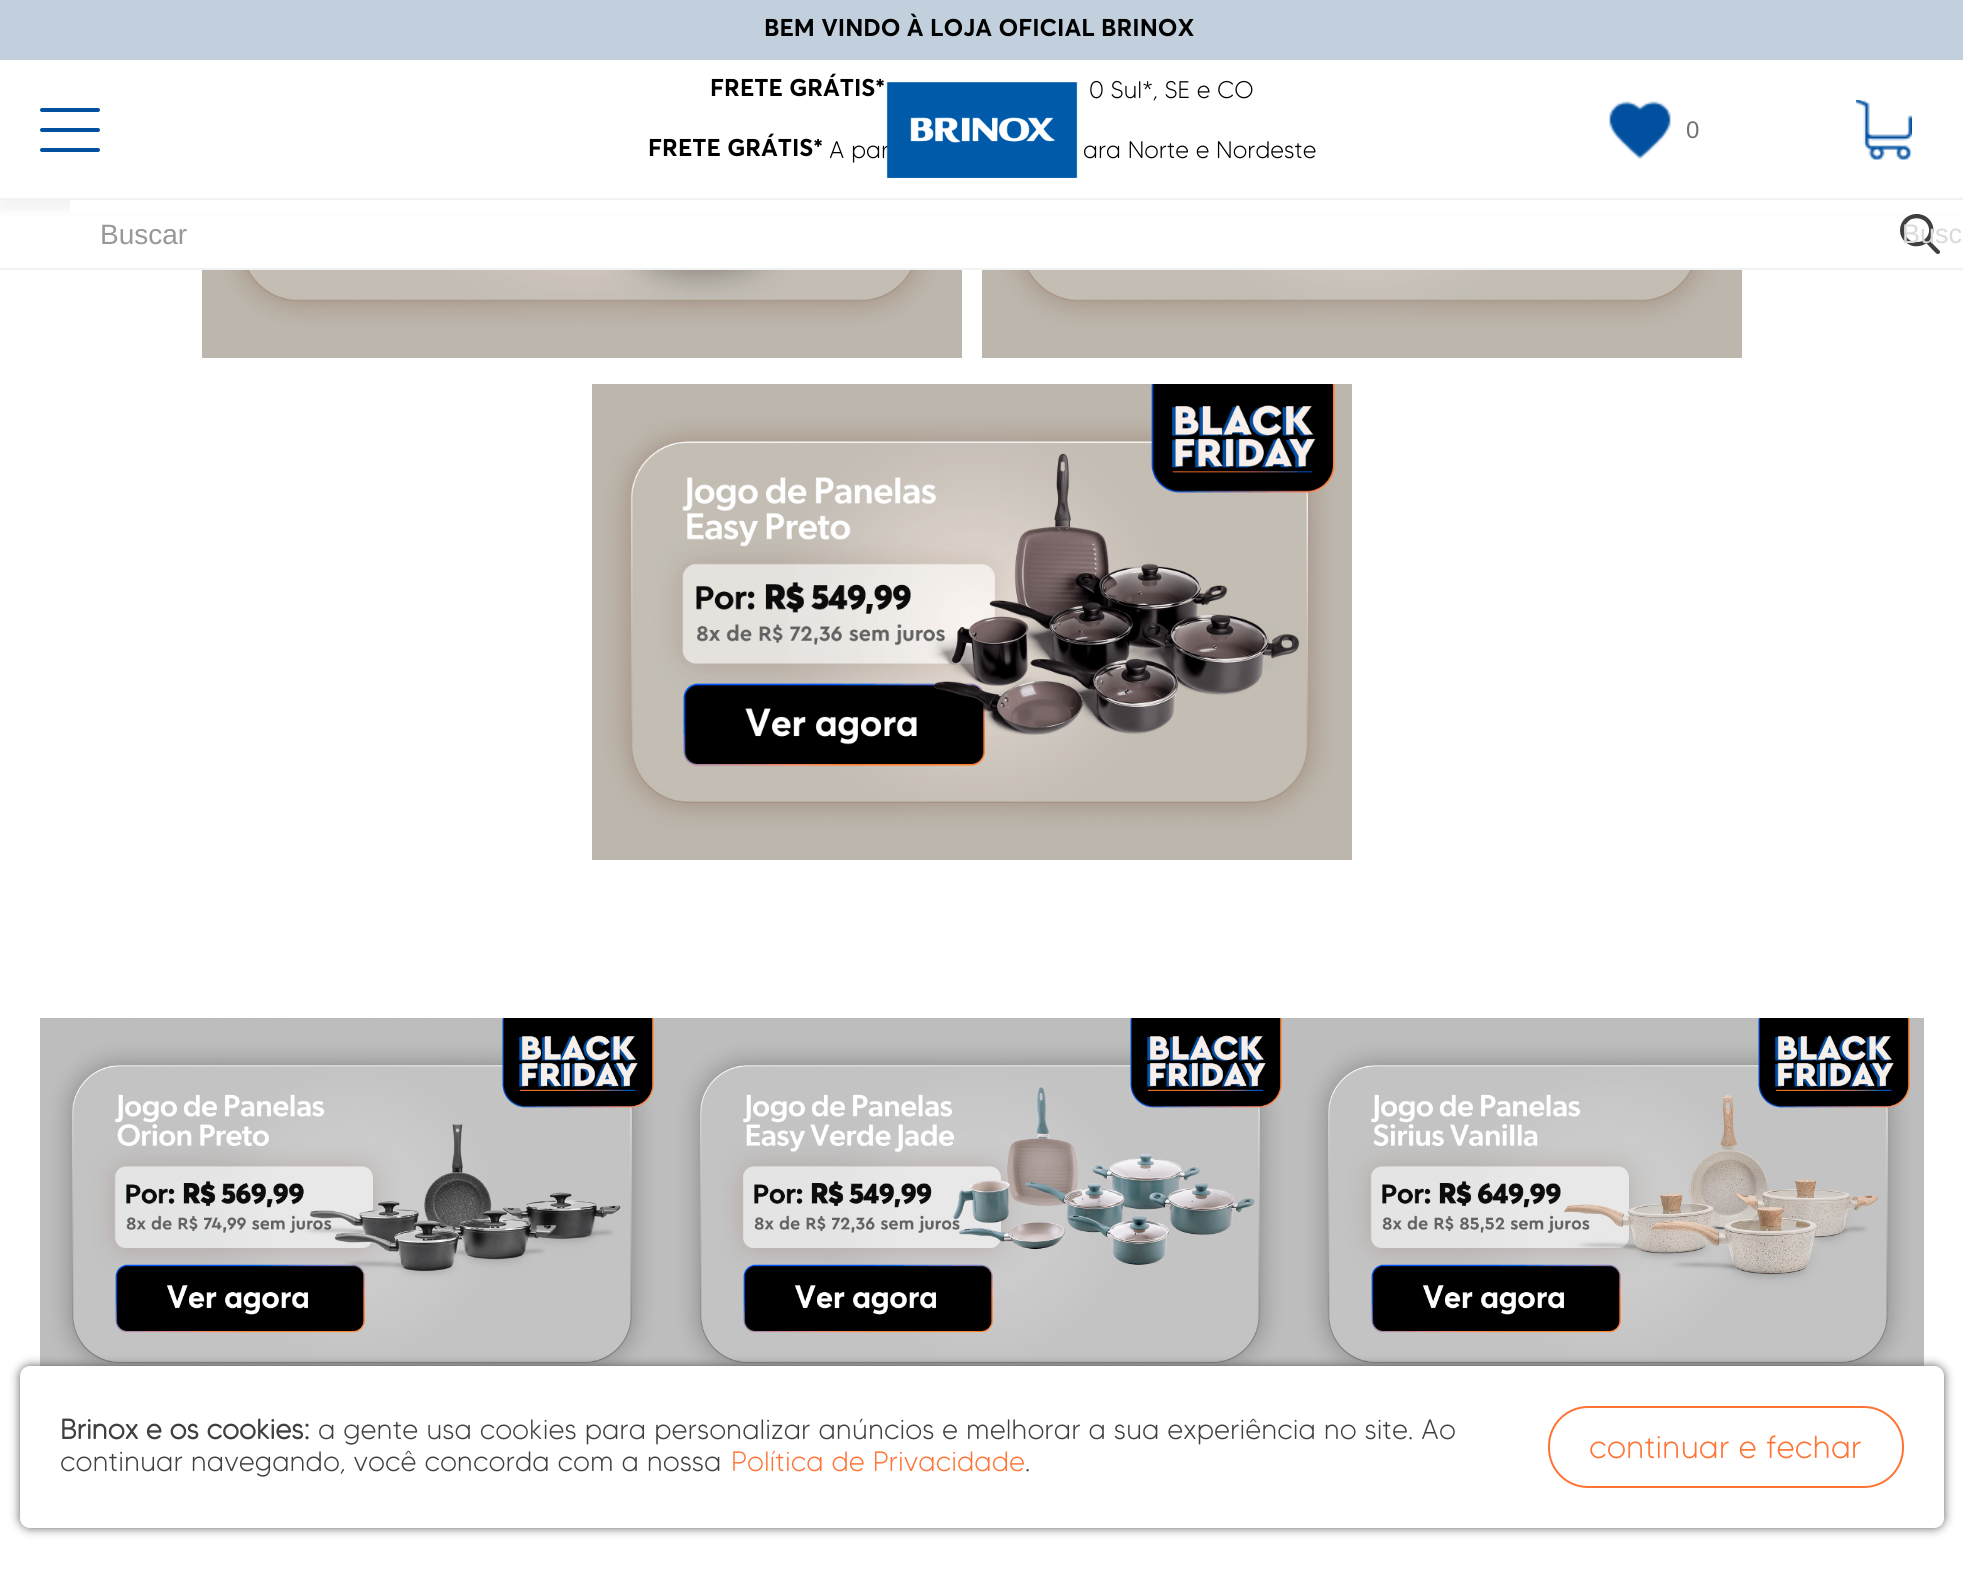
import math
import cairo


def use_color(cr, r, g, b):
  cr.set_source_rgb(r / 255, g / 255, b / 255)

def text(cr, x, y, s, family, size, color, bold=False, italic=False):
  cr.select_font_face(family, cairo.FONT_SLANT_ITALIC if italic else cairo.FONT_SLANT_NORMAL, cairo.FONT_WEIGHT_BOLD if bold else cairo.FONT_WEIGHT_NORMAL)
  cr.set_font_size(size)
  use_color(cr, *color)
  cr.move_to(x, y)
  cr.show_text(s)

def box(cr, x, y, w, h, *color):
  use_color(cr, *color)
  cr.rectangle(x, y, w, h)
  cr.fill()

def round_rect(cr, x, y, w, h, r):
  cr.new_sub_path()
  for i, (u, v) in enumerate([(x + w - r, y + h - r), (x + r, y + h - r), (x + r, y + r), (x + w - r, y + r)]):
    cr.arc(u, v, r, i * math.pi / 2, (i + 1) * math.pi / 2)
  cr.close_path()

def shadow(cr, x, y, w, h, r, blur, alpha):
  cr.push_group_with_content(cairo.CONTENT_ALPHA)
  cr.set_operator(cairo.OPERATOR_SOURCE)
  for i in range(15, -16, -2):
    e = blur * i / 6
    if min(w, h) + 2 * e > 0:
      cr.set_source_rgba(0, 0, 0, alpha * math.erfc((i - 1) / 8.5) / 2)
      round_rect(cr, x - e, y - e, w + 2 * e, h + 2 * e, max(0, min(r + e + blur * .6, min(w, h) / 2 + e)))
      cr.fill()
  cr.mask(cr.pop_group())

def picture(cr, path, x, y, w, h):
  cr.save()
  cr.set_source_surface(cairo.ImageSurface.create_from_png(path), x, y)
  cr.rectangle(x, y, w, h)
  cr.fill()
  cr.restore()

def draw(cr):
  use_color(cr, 255, 255, 255)
  cr.paint()
  use_color(cr, 0, 0, 0)
  shadow(cr, 0, 10, 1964, 200, 0, 5, 0.05)
  box(cr, 0, 0, 1963, 60, 194, 208, 221)
  box(cr, 0, 60, 1963, 138, 255, 255, 255)
  box(cr, 0, 198, 1963, 2, 241, 242, 242)
  use_color(cr, 0, 80, 159)
  round_rect(cr, 40, 108, 60, 4, 2)
  cr.fill()
  round_rect(cr, 40, 128, 60, 4, 2)
  cr.fill()
  round_rect(cr, 40, 148, 60, 4, 2)
  cr.fill()
  picture(cr, "img_02.png", 1609, 101, 62, 58)
  picture(cr, "img_03.png", 1856, 100, 56, 60)
  box(cr, 0, 268, 1963, 2, 241, 242, 242)
  box(cr, 70, 200, 1893, 14, 255, 255, 255)
  picture(cr, "img_04.png", 1900, 214, 40, 40)
  picture(cr, "img_05.png", 202, 270, 760, 88)
  picture(cr, "img_06.png", 982, 270, 760, 88)
  picture(cr, "img_07.png", 592, 384, 760, 476)
  picture(cr, "img_08.png", 40, 1018, 628, 348)
  picture(cr, "img_09.png", 668, 1018, 628, 348)
  picture(cr, "img_10.png", 1296, 1018, 628, 348)
  use_color(cr, 95, 95, 95)
  shadow(cr, 20, 1366, 1924, 162, 10, 5, 1)
  use_color(cr, 255, 255, 255)
  round_rect(cr, 20, 1366, 1924, 162, 10)
  cr.fill()
  round_rect(cr, 1549, 1407, 354, 80, 39)
  use_color(cr, 255, 115, 52)
  cr.stroke()
  text(cr, 764, 36, "BEM VINDO À LOJA OFICIAL BRINOX", "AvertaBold", 24, (0, 0, 0), bold=True)
  text(cr, 710, 96, "FRETE GRÁTIS*", "AvertaBold", 24, (0, 0, 0), bold=True)
  text(cr, 1089, 98, "0 Sul*, SE e CO", "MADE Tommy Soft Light", 24, (0, 0, 0))
  text(cr, 648, 156, "FRETE GRÁTIS*", "AvertaBold", 24, (0, 0, 0), bold=True)
  text(cr, 829, 158, "A par", "MADE Tommy Soft Light", 24, (0, 0, 0))
  text(cr, 1083, 158, "ara Norte e Nordeste", "MADE Tommy Soft Light", 24, (0, 0, 0))
  picture(cr, "img_01.png", 886, 82, 192, 96)
  text(cr, 1686, 138, "0", "Liberation Sans", 24, (114, 114, 115))
  text(cr, 100, 244, "Buscar", "Liberation Sans", 28, (151, 152, 153))
  text(cr, 1902, 243, "Busc", "Liberation Sans", 27, (218, 218, 218))
  text(cr, 60, 1439, "Brinox e os cookies:", "MADE Tommy Soft", 28, (63, 63, 64), bold=True)
  text(cr, 318, 1439, "a gente usa cookies para personalizar anúncios e melhorar a sua experiência no site. Ao", "MADE Tommy Soft Light", 28, (63, 63, 64))
  text(cr, 60, 1471, "continuar navegando, você concorda com a nossa", "MADE Tommy Soft Light", 28, (63, 63, 64))
  text(cr, 731, 1471, "Política de Privacidade", "MADE Tommy Soft Light", 28, (255, 115, 52))
  text(cr, 1025, 1471, ".", "MADE Tommy Soft Light", 28, (63, 63, 64))
  text(cr, 1589, 1458, "continuar e fechar", "MADE Tommy Soft Light", 32, (255, 115, 52))


surface = cairo.ImageSurface(cairo.FORMAT_RGB24, 1963, 1578)
cr = cairo.Context(surface)
options = cairo.FontOptions()
options.set_hint_metrics(cairo.HINT_METRICS_OFF)
options.set_hint_style(cairo.HINT_STYLE_NONE)
cr.set_font_options(options)
cr.set_miter_limit(4)
draw(cr)
surface.write_to_png("out.png")
